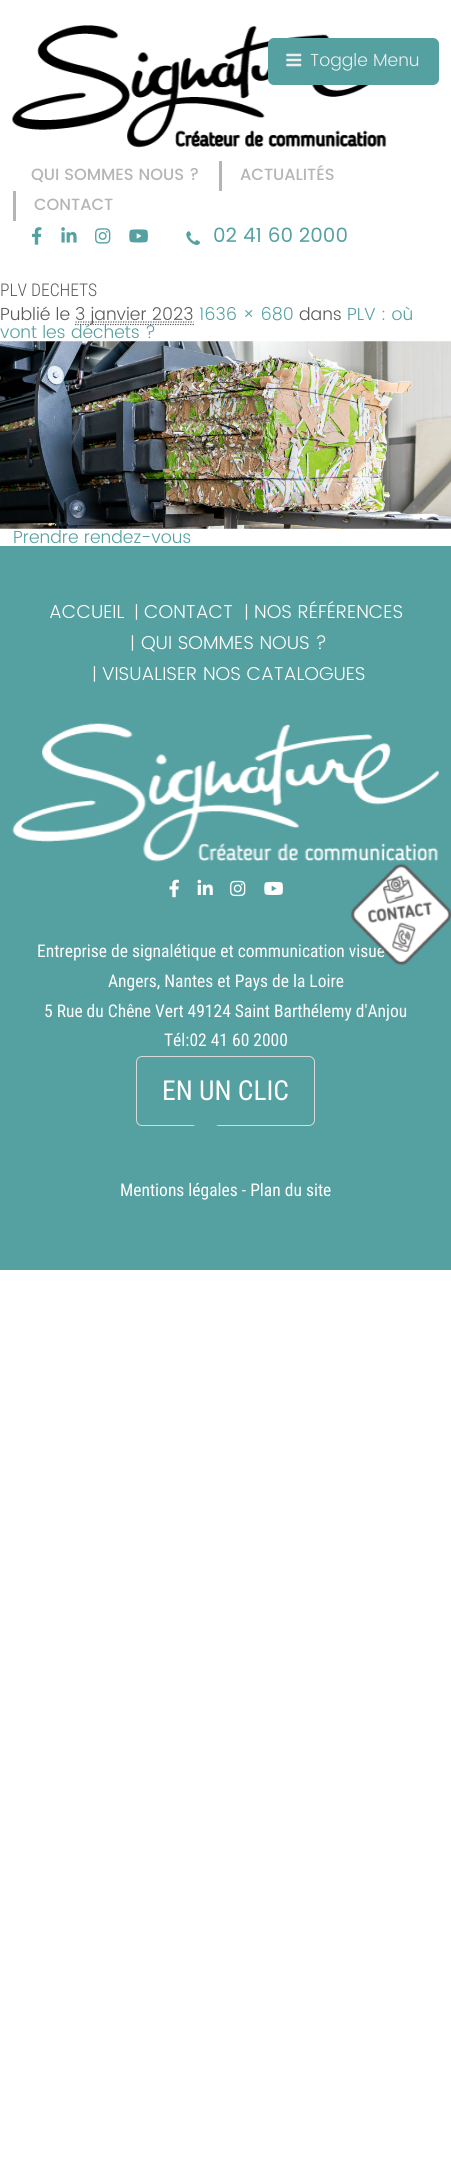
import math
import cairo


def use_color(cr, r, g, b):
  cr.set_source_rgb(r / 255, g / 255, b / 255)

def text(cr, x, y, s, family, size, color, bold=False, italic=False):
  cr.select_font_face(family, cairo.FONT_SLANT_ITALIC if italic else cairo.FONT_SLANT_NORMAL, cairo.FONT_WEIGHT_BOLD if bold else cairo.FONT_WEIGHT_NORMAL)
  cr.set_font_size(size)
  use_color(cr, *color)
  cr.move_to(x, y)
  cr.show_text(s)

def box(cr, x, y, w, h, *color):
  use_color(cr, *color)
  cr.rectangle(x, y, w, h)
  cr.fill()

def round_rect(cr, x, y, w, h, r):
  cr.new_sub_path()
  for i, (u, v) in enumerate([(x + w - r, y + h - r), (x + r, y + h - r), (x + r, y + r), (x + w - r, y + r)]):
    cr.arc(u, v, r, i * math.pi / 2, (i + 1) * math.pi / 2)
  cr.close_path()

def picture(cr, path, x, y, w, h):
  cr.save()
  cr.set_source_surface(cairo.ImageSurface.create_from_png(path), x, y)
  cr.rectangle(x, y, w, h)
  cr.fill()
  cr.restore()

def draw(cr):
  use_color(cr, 255, 255, 255)
  cr.paint()
  picture(cr, "img_02.png", 12, 25, 375, 123)
  use_color(cr, 85, 160, 161)
  round_rect(cr, 268, 38, 171, 47, 6)
  cr.fill()
  picture(cr, "img_01.png", 286, 53, 16, 14)
  box(cr, 219, 161, 3, 30, 180, 181, 182)
  box(cr, 13, 191, 3, 30, 180, 181, 182)
  picture(cr, "img_03.png", 32, 227, 10, 18)
  picture(cr, "img_04.png", 61, 227, 16, 16)
  picture(cr, "img_05.png", 95, 228, 16, 16)
  picture(cr, "img_06.png", 129, 229, 19, 14)
  picture(cr, "img_07.png", 186, 231, 14, 14)
  cr.new_path()
  cr.move_to(75, 324.5)
  cr.line_to(194, 324.5)
  use_color(cr, 90, 90, 90)
  cr.set_line_width(1.2)
  cr.set_dash([1.25, 1.25])
  cr.stroke()
  cr.new_path()
  cr.move_to(75.5, 322)
  cr.line_to(193.5, 322)
  cr.stroke()
  picture(cr, "img_08.png", 0, 341, 451, 188)
  box(cr, 0, 546, 451, 724, 85, 160, 161)
  picture(cr, "img_09.png", 12, 723, 427, 139)
  picture(cr, "img_10.png", 169, 879, 10, 19)
  picture(cr, "img_11.png", 197, 879, 16, 16)
  picture(cr, "img_12.png", 230, 880, 16, 17)
  picture(cr, "img_13.png", 264, 881, 19, 14)
  round_rect(cr, 136.5, 1056.5, 178, 69, 5.5)
  use_color(cr, 217, 217, 217)
  cr.set_line_width(1)
  cr.set_dash([])
  cr.stroke()
  picture(cr, "img_14.png", 193, 1125, 26, 1)
  text(cr, 310, 66, "Toggle Menu", "Poppins Light", 17.5, (238, 238, 238))
  text(cr, 31, 180, "QUI SOMMES NOUS ?", "Poppins Medium", 16.25, (180, 181, 182))
  text(cr, 240, 180, "ACTUALITÉS", "Poppins Medium", 16.25, (180, 181, 182))
  text(cr, 34, 210, "CONTACT", "Poppins Medium", 16.25, (180, 181, 182))
  text(cr, 213, 242, "02 41 60 2000", "Poppins", 19.75, (85, 160, 161))
  text(cr, 0, 296, "PLV DECHETS", "Roboto Condensed Light", 17.5, (90, 90, 90))
  text(cr, 0, 320, "Publié le", "Poppins Light", 17.5, (90, 90, 90))
  text(cr, 75, 320, "3 janvier 2023", "Poppins Light", 17.5, (90, 90, 90))
  text(cr, 199, 320, "1636 × 680", "Poppins Light", 17.5, (85, 160, 161))
  text(cr, 299, 320, "dans", "Poppins Light", 17.5, (90, 90, 90))
  text(cr, 347, 320, "PLV : où", "Poppins Light", 17.5, (85, 160, 161))
  text(cr, 0, 338, "vont les déchets ?", "Poppins Light", 17.5, (85, 160, 161))
  text(cr, 13, 543, "Prendre rendez-vous", "Poppins Light", 17.5, (85, 160, 161))
  text(cr, 49, 618, "ACCUEIL", "Poppins Light", 18.7, (255, 255, 255))
  text(cr, 134, 618, "|", "Poppins Light", 17.5, (255, 255, 255))
  text(cr, 144, 618, "CONTACT", "Poppins Light", 18.7, (255, 255, 255))
  text(cr, 244, 618, "|", "Poppins Light", 17.5, (255, 255, 255))
  text(cr, 254, 618, "NOS RÉFÉRENCES", "Poppins Light", 18.7, (255, 255, 255))
  text(cr, 130, 649, "|", "Poppins Light", 17.5, (255, 255, 255))
  text(cr, 141, 649, "QUI SOMMES NOUS ?", "Poppins Light", 18.7, (255, 255, 255))
  text(cr, 92, 680, "|", "Poppins Light", 17.5, (255, 255, 255))
  text(cr, 102, 680, "VISUALISER NOS CATALOGUES", "Poppins Light", 18.7, (255, 255, 255))
  text(cr, 37, 957, "Entreprise de signalétique et communication visue", "Roboto Condensed", 17.5, (255, 255, 255))
  text(cr, 108, 987, "Angers, Nantes et Pays de la Loire", "Roboto Condensed", 17.5, (255, 255, 255))
  text(cr, 44, 1017, "5 Rue du Chêne Vert 49124 Saint Barthélemy d'Anjou", "Roboto Condensed", 17.5, (255, 255, 255))
  text(cr, 164, 1046, "Tél:02 41 60 2000", "Roboto Condensed", 17.5, (255, 255, 255))
  text(cr, 162, 1100, "EN UN CLIC", "Roboto Condensed", 27.5, (255, 255, 255))
  text(cr, 120, 1196, "Mentions légales - Plan du site", "Roboto Condensed", 17.5, (255, 255, 255))
  picture(cr, "img_15.png", 351, 863, 100, 103)


surface = cairo.ImageSurface(cairo.FORMAT_RGB24, 451, 2158)
cr = cairo.Context(surface)
options = cairo.FontOptions()
options.set_hint_metrics(cairo.HINT_METRICS_OFF)
options.set_hint_style(cairo.HINT_STYLE_NONE)
cr.set_font_options(options)
cr.set_miter_limit(4)
draw(cr)
surface.write_to_png("out.png")
